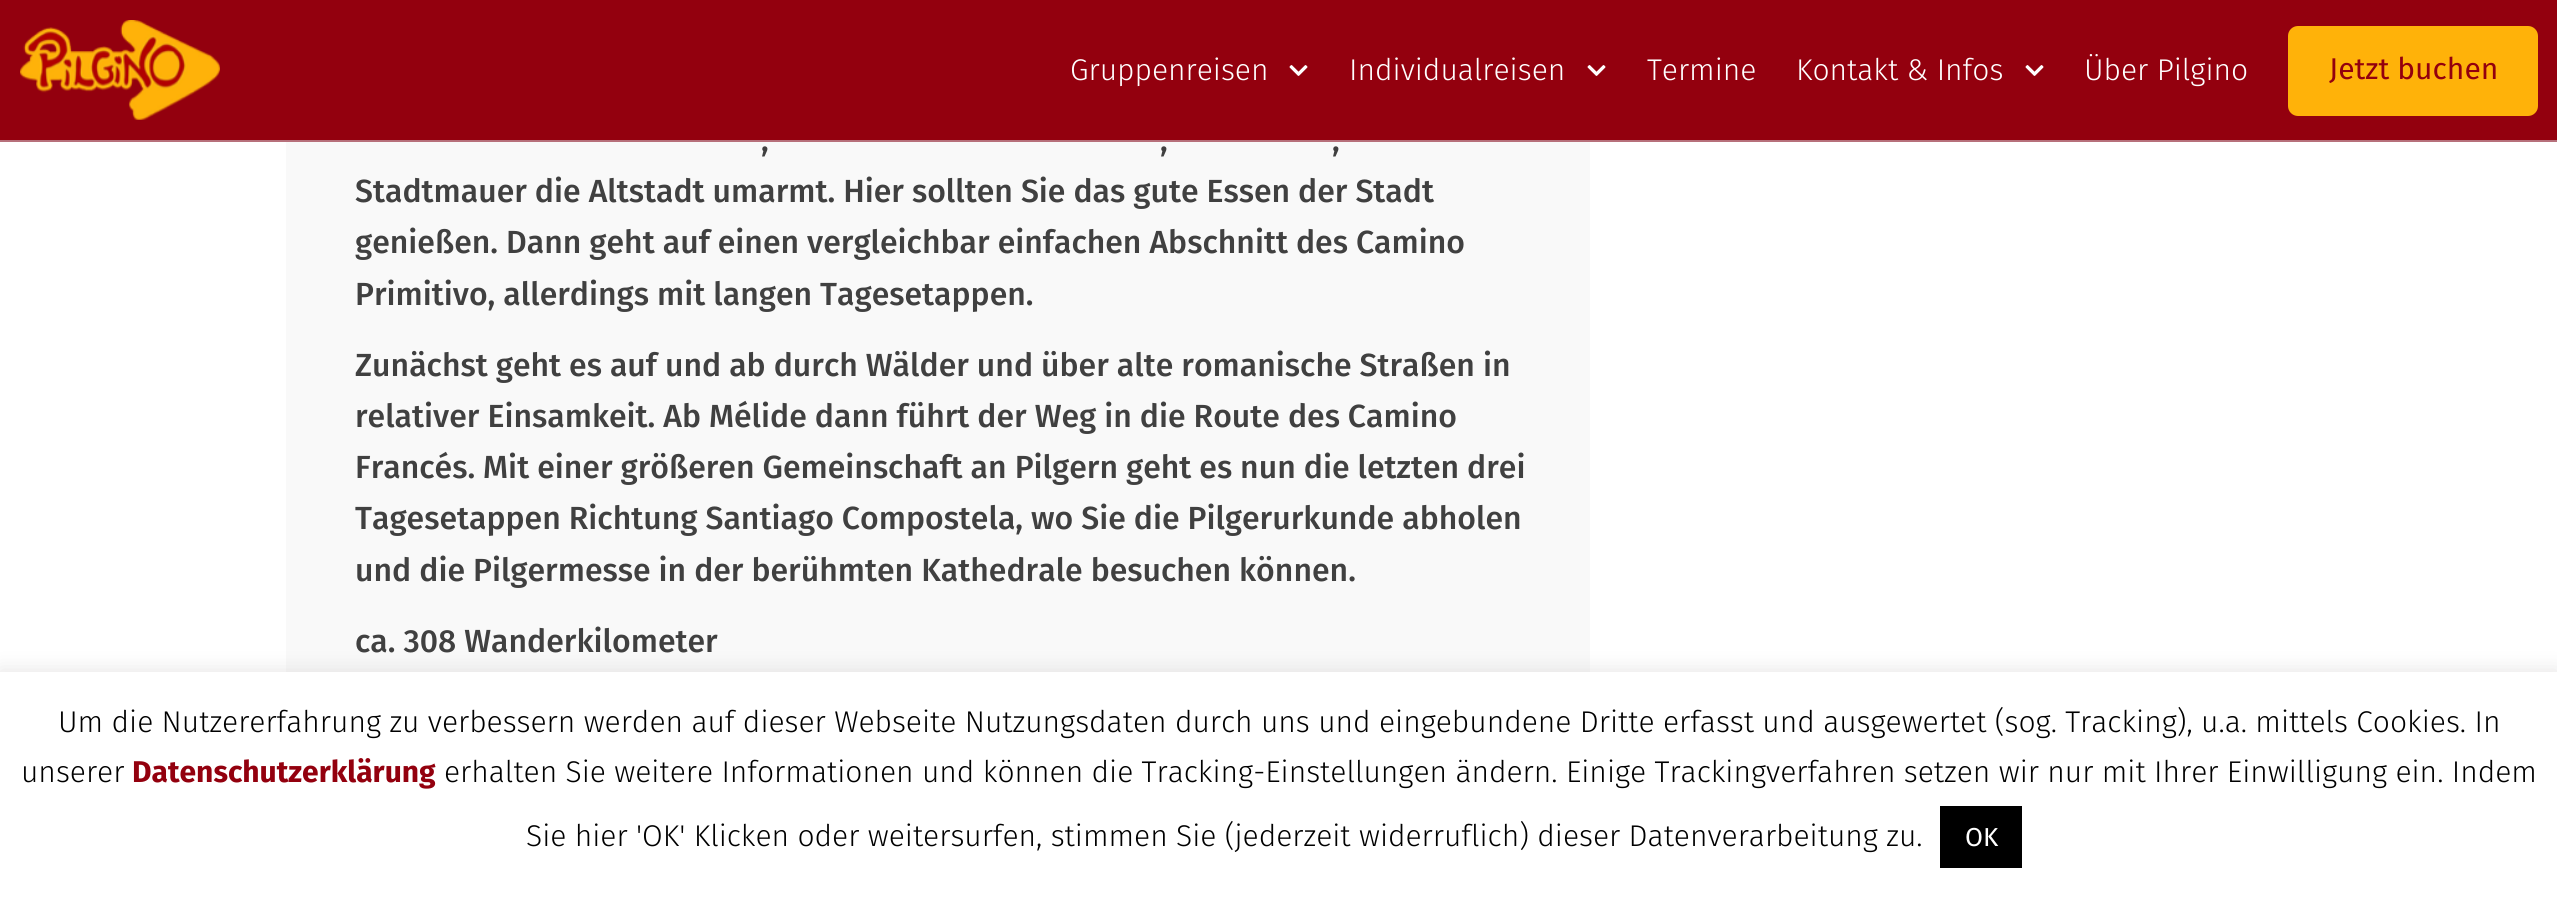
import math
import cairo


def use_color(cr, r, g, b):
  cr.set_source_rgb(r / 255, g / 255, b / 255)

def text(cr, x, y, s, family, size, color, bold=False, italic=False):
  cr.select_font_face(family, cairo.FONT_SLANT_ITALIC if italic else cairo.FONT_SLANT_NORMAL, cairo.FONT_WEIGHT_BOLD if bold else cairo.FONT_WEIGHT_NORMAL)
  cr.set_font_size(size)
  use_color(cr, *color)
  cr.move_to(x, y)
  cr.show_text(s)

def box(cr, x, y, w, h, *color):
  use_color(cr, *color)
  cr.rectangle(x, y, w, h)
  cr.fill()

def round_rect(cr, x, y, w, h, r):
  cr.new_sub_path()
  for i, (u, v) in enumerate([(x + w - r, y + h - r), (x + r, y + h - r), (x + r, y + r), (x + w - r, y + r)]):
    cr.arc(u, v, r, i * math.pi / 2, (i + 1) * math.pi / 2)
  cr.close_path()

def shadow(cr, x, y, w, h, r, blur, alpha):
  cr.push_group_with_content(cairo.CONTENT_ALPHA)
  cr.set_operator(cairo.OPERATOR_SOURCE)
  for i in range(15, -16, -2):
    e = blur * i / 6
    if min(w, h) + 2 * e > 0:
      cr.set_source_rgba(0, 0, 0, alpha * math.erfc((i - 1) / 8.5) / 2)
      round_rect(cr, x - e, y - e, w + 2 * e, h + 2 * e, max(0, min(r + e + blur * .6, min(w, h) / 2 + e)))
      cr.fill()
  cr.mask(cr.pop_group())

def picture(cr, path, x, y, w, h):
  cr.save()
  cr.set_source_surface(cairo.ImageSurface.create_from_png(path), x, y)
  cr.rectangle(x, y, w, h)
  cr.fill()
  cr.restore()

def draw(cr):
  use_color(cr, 255, 255, 255)
  cr.paint()
  box(cr, 0, 0, 2557, 140, 147, 0, 14)
  box(cr, 0, 140, 2557, 2, 183, 112, 123)
  picture(cr, "img_01.png", 20, 20, 200, 100)
  picture(cr, "img_02.png", 1289, 65, 19, 11)
  picture(cr, "img_02.png", 1587, 65, 19, 11)
  picture(cr, "img_02.png", 2025, 65, 19, 11)
  use_color(cr, 255, 178, 9)
  round_rect(cr, 2288, 26, 250, 90, 10)
  cr.fill()
  box(cr, 286, 142, 1304, 530, 249, 249, 249)
  use_color(cr, 172, 171, 171)
  shadow(cr, 0, 670, 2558, 230, 0, 10, 0.3)
  box(cr, 0, 672, 2557, 230, 255, 255, 255)
  box(cr, 1940, 806, 82, 62, 0, 0, 0)
  text(cr, 1070, 80, "Gruppenreisen", "Fira Sans Light", 30, (255, 255, 255))
  text(cr, 1349, 80, "Individualreisen", "Fira Sans Light", 30, (255, 255, 255))
  text(cr, 1647, 80, "Termine", "Fira Sans Light", 30, (255, 255, 255))
  text(cr, 1796, 80, "Kontakt & Infos", "Fira Sans Light", 30, (255, 255, 255))
  text(cr, 2084, 80, "Über Pilgino", "Fira Sans Light", 30, (255, 255, 255))
  text(cr, 2329, 79, "Jetzt buchen", "Fira Sans", 30, (147, 0, 14))
  text(cr, 761, 151, ",", "Fira Sans Medium", 32, (64, 64, 64))
  text(cr, 1160, 151, ",", "Fira Sans Medium", 32, (64, 64, 64))
  text(cr, 1332, 151, ",", "Fira Sans Medium", 32, (64, 64, 64))
  text(cr, 355, 202, "Stadtmauer die Altstadt umarmt. Hier sollten Sie das gute Essen der Stadt", "Fira Sans Medium", 32, (64, 64, 64))
  text(cr, 355, 253, "genießen. Dann geht auf einen vergleichbar einfachen Abschnitt des Camino", "Fira Sans Medium", 32, (64, 64, 64))
  text(cr, 355, 305, "Primitivo, allerdings mit langen Tagesetappen.", "Fira Sans Medium", 32, (64, 64, 64))
  text(cr, 355, 376, "Zunächst geht es auf und ab durch Wälder und über alte romanische Straßen in", "Fira Sans Medium", 32, (64, 64, 64))
  text(cr, 355, 427, "relativer Einsamkeit. Ab Mélide dann führt der Weg in die Route des Camino", "Fira Sans Medium", 32, (64, 64, 64))
  text(cr, 355, 478, "Francés. Mit einer größeren Gemeinschaft an Pilgern geht es nun die letzten drei", "Fira Sans Medium", 32, (64, 64, 64))
  text(cr, 355, 529, "Tagesetappen Richtung Santiago Compostela, wo Sie die Pilgerurkunde abholen", "Fira Sans Medium", 32, (64, 64, 64))
  text(cr, 355, 581, "und die Pilgermesse in der berühmten Kathedrale besuchen können.", "Fira Sans Medium", 32, (64, 64, 64))
  text(cr, 355, 652, "ca. 308 Wanderkilometer", "Fira Sans Medium", 32, (64, 64, 64))
  text(cr, 58, 732, "Um die Nutzererfahrung zu verbessern werden auf dieser Webseite Nutzungsdaten durch uns und eingebundene Dritte erfasst und ausgewertet (sog. Tracking), u.a. mittels Cookies. In", "Fira Sans Light", 30, (0, 0, 0))
  text(cr, 21, 782, "unserer", "Fira Sans Light", 30, (0, 0, 0))
  text(cr, 132, 782, "Datenschutzerklärung", "Fira Sans", 30, (147, 0, 14), bold=True)
  text(cr, 444, 782, "erhalten Sie weitere Informationen und können die Tracking-Einstellungen ändern. Einige Trackingverfahren setzen wir nur mit Ihrer Einwilligung ein. Indem", "Fira Sans Light", 30, (0, 0, 0))
  text(cr, 526, 846, "Sie hier 'OK' Klicken oder weitersurfen, stimmen Sie (jederzeit widerruflich) dieser Datenverarbeitung zu.", "Fira Sans Light", 30, (0, 0, 0))
  text(cr, 1965, 846, "OK", "Fira Sans", 26, (255, 255, 255))


surface = cairo.ImageSurface(cairo.FORMAT_RGB24, 2557, 902)
cr = cairo.Context(surface)
options = cairo.FontOptions()
options.set_hint_metrics(cairo.HINT_METRICS_OFF)
options.set_hint_style(cairo.HINT_STYLE_NONE)
cr.set_font_options(options)
cr.set_miter_limit(4)
draw(cr)
surface.write_to_png("out.png")
